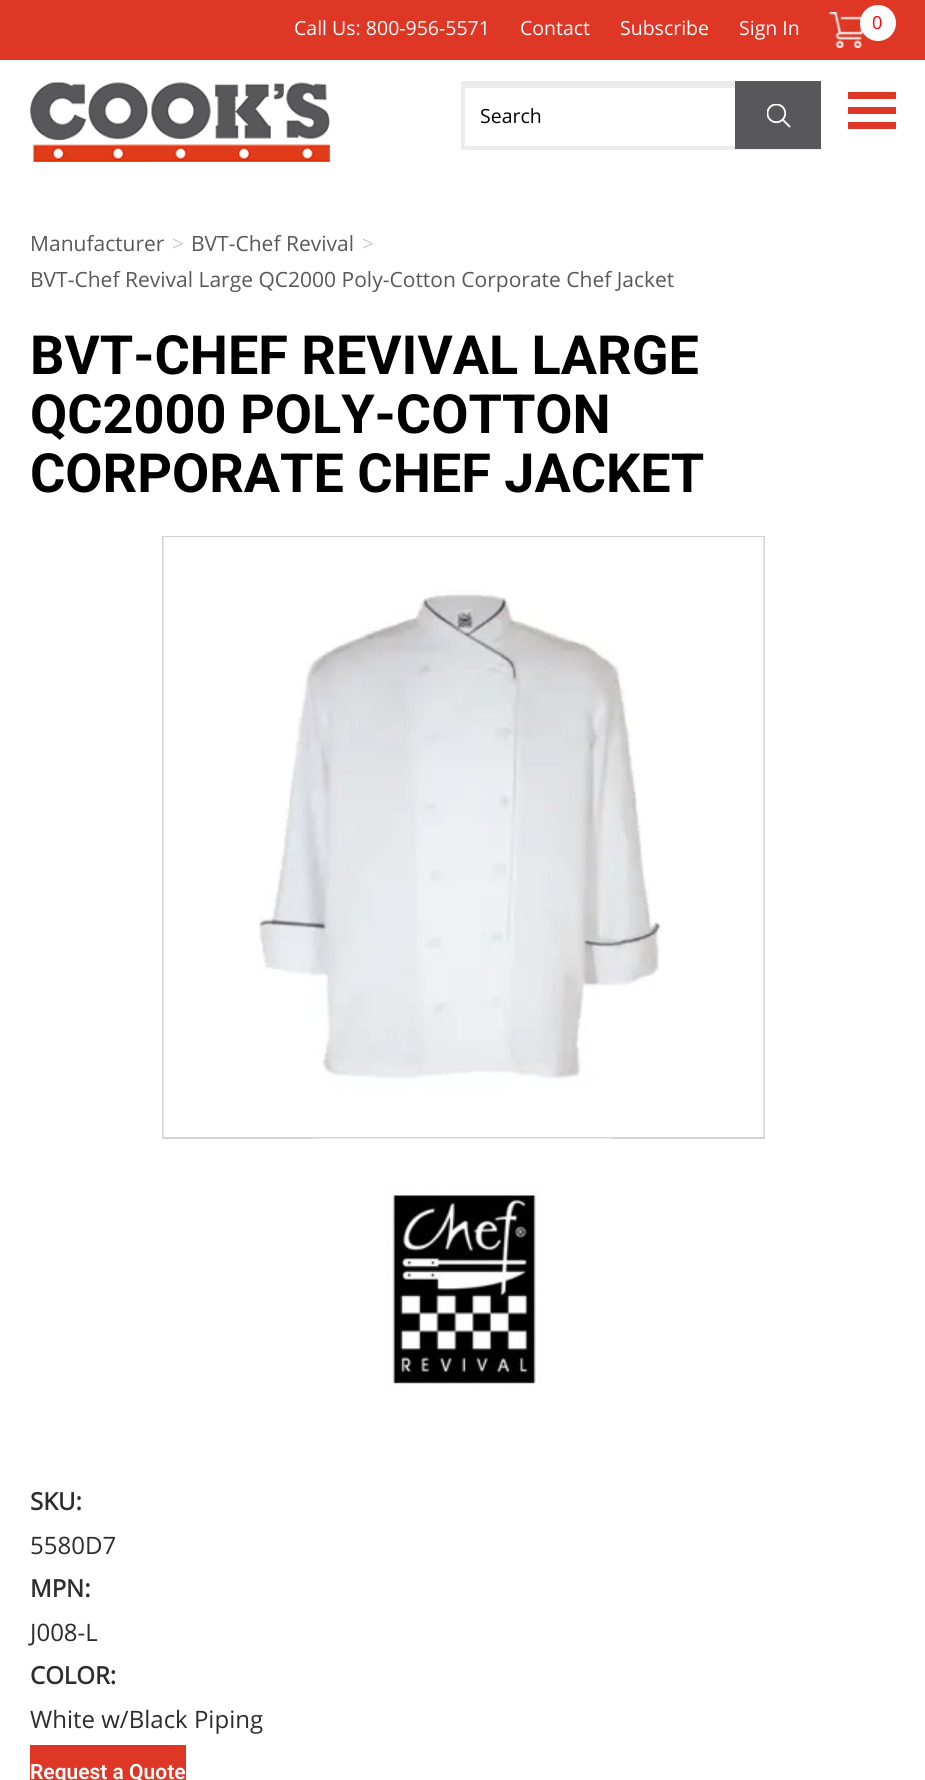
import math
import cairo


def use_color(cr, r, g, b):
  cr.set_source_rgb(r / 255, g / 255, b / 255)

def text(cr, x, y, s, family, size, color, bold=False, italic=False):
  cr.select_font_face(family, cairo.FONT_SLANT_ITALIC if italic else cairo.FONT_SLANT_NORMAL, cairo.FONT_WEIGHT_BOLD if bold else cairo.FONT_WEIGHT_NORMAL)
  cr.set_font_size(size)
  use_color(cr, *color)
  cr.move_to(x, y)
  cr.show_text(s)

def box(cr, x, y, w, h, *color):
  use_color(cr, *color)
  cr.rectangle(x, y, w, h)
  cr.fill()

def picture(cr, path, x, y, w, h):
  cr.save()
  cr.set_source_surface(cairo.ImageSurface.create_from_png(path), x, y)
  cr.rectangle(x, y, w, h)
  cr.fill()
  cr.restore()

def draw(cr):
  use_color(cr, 255, 255, 255)
  cr.paint()
  box(cr, 0, 0, 925, 60, 223, 55, 38)
  picture(cr, "img_01.png", 829, 12, 35, 36)
  use_color(cr, 255, 255, 255)
  cr.arc(878, 23, 18, 0, 2 * math.pi)
  cr.fill()
  picture(cr, "img_02.png", 30, 82, 300, 80)
  cr.rectangle(463.5, 83.5, 355, 64)
  use_color(cr, 236, 236, 236)
  cr.set_line_width(5)
  cr.stroke()
  box(cr, 465, 88, 270, 58, 255, 255, 255)
  box(cr, 465, 86, 270, 2, 236, 236, 236)
  box(cr, 735, 81, 86, 68, 88, 88, 90)
  picture(cr, "img_03.png", 767, 104, 24, 24)
  box(cr, 848, 92, 48, 7, 223, 55, 38)
  box(cr, 848, 107, 48, 7, 223, 55, 38)
  box(cr, 848, 122, 48, 7, 223, 55, 38)
  cr.rectangle(163, 537, 601, 601)
  use_color(cr, 211, 211, 211)
  cr.set_line_width(2)
  cr.stroke()
  picture(cr, "img_04.png", 163, 537, 601, 600)
  picture(cr, "img_05.png", 313, 1138, 301, 251)
  box(cr, 30, 1745, 156, 35, 223, 55, 38)
  text(cr, 294, 35, "Call Us: 800-956-5571", "Open Sans", 19.5, (255, 255, 255))
  text(cr, 520, 35, "Contact", "Open Sans", 19.5, (255, 255, 255))
  text(cr, 620, 35, "Subscribe", "Open Sans", 19.5, (255, 255, 255))
  text(cr, 739, 35, "Sign In", "Open Sans", 19.5, (255, 255, 255))
  text(cr, 872, 29, "0", "Open Sans", 18, (255, 0, 0))
  text(cr, 480, 123, "Search", "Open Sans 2", 19.5, (0, 0, 0))
  text(cr, 30, 251, "Manufacturer", "Open Sans", 21, (88, 88, 90))
  text(cr, 172, 251, ">", "Open Sans", 21, (204, 204, 204))
  text(cr, 191, 251, "BVT-Chef Revival", "Open Sans", 21, (88, 88, 90))
  text(cr, 362, 251, ">", "Open Sans", 21, (204, 204, 204))
  text(cr, 30, 287, "BVT-Chef Revival Large QC2000 Poly-Cotton Corporate Chef Jacket", "Open Sans", 21, (88, 88, 90))
  text(cr, 30, 374, "BVT-CHEF REVIVAL LARGE", "Roboto", 54, (0, 0, 0), bold=True)
  text(cr, 30, 433, "QC2000 POLY-COTTON", "Roboto", 54, (0, 0, 0), bold=True)
  text(cr, 30, 492, "CORPORATE CHEF JACKET", "Roboto", 54, (0, 0, 0), bold=True)
  text(cr, 30, 1510, "SKU:", "Open Sans", 24, (46, 45, 46), bold=True)
  text(cr, 30, 1554, "5580D7", "Open Sans", 24, (46, 45, 46))
  text(cr, 30, 1597, "MPN:", "Open Sans", 24, (46, 45, 46), bold=True)
  text(cr, 30, 1641, "J008-L", "Open Sans", 24, (46, 45, 46))
  text(cr, 30, 1684, "COLOR:", "Open Sans", 24, (46, 45, 46), bold=True)
  text(cr, 30, 1728, "White w/Black Piping", "Open Sans", 24, (46, 45, 46))
  text(cr, 30, 1779, "Request a Quote", "Roboto SemiBold", 21, (255, 255, 255))


surface = cairo.ImageSurface(cairo.FORMAT_RGB24, 925, 1780)
cr = cairo.Context(surface)
options = cairo.FontOptions()
options.set_hint_metrics(cairo.HINT_METRICS_OFF)
options.set_hint_style(cairo.HINT_STYLE_NONE)
cr.set_font_options(options)
cr.set_miter_limit(4)
draw(cr)
surface.write_to_png("out.png")
